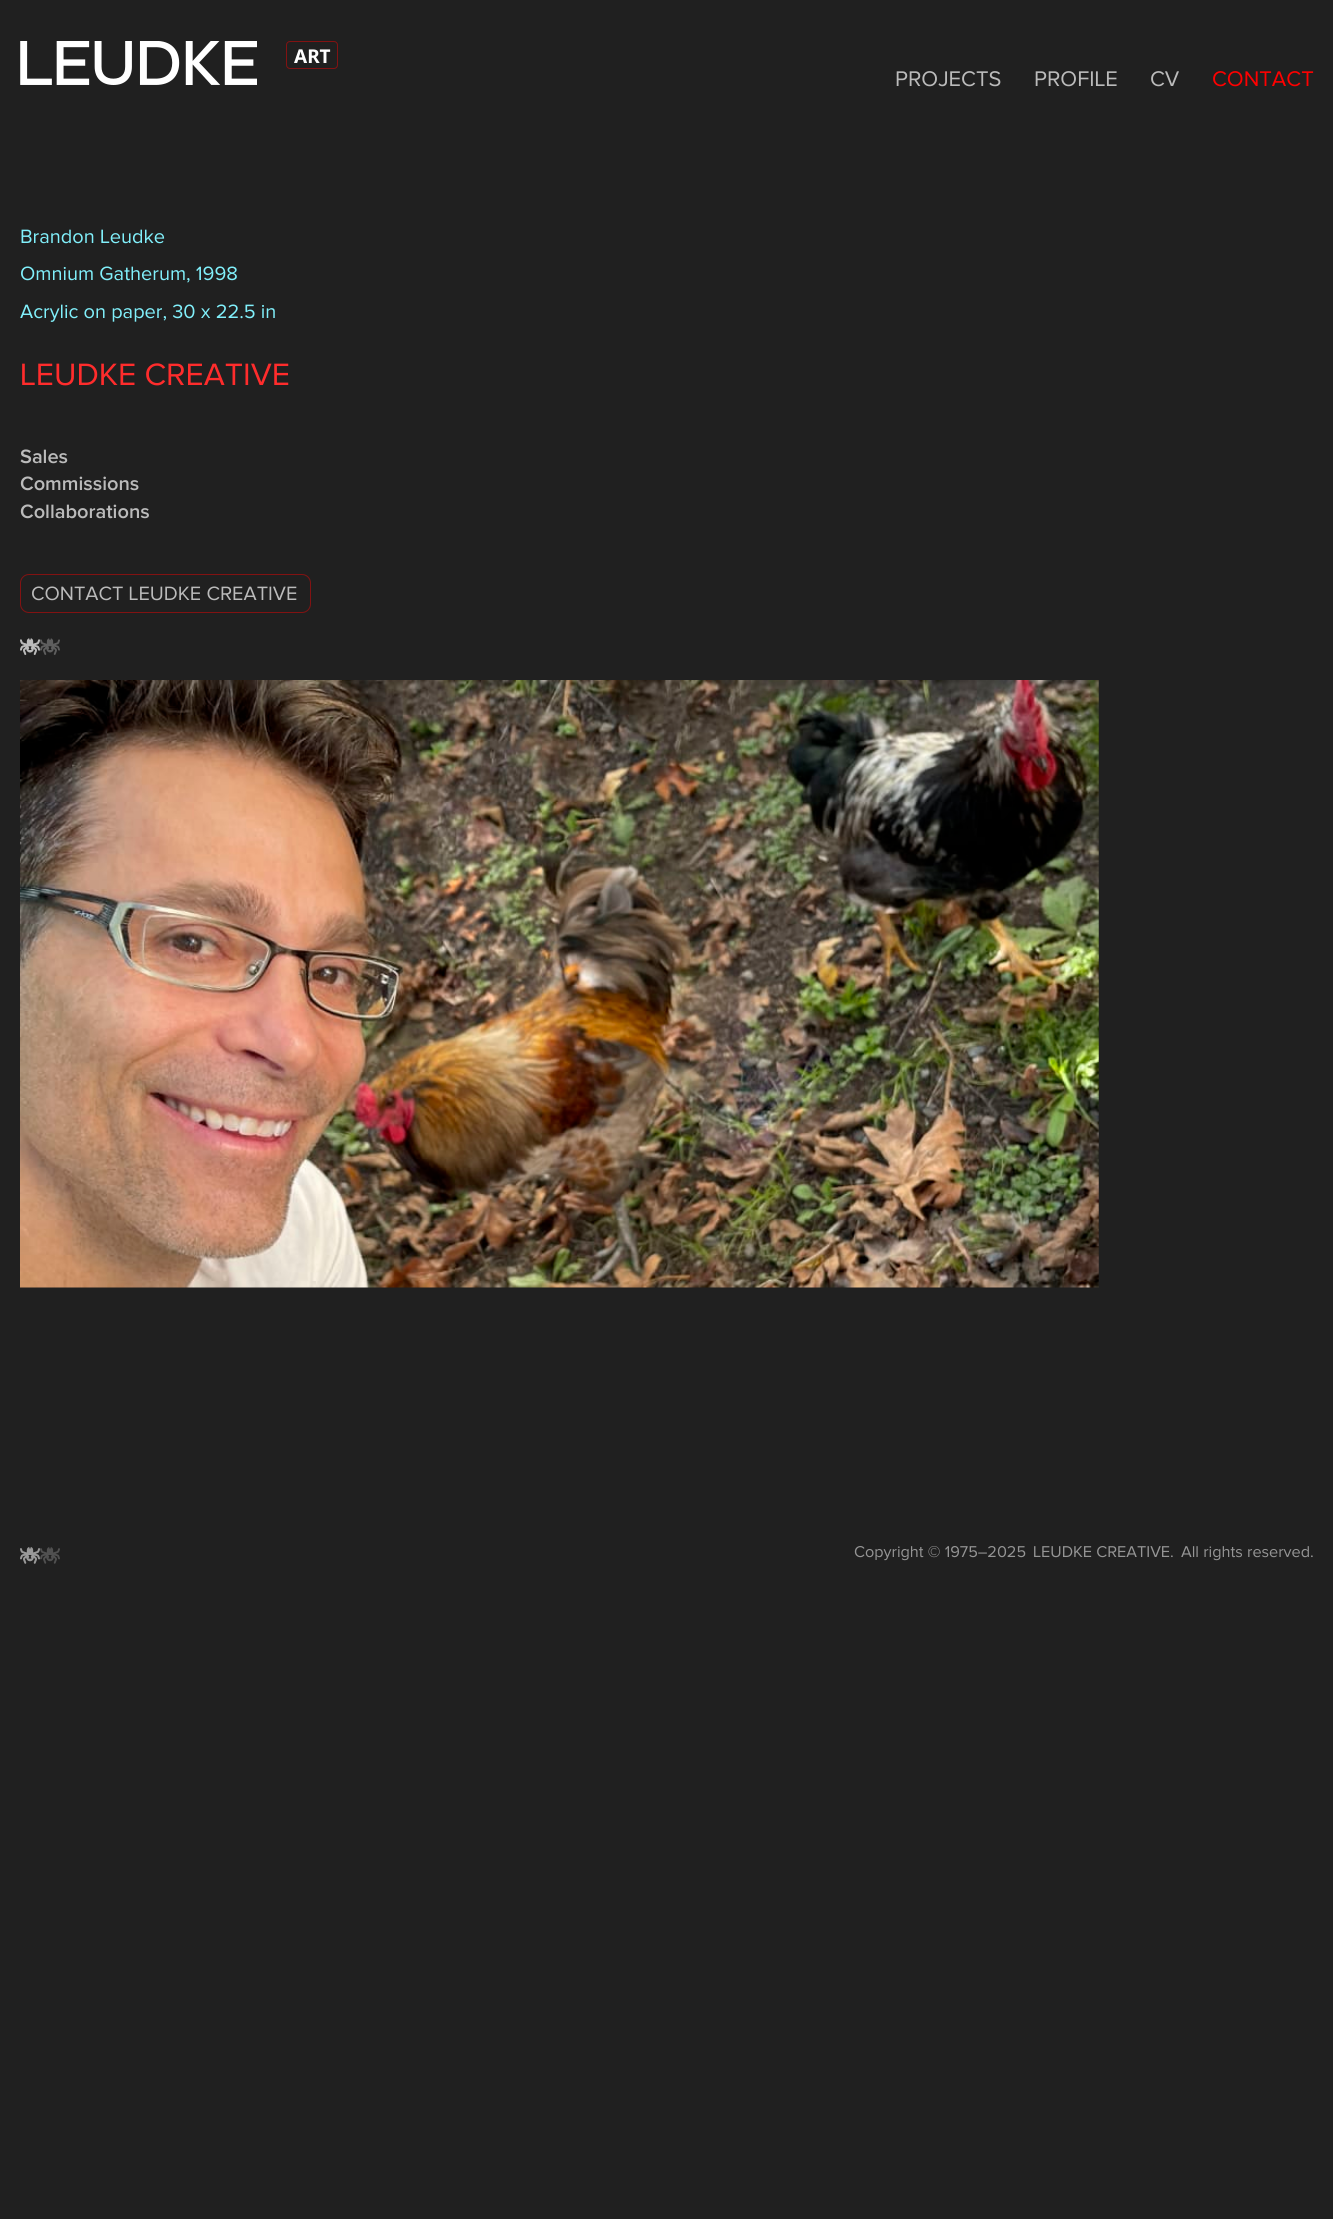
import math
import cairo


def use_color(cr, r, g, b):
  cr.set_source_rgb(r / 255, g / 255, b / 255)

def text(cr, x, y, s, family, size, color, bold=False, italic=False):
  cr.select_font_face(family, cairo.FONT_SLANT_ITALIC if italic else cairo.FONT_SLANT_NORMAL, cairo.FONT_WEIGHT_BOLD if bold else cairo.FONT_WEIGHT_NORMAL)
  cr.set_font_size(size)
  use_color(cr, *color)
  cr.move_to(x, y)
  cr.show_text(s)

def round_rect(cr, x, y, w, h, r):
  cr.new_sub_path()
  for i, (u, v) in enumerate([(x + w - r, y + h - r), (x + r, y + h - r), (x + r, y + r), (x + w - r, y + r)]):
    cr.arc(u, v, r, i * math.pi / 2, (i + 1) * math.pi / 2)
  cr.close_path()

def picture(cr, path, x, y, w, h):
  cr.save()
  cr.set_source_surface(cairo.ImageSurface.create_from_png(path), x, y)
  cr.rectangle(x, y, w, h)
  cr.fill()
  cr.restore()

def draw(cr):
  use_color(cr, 32, 32, 32)
  cr.paint()
  picture(cr, "img_01.png", 20, 41, 237, 44)
  round_rect(cr, 286.5, 41.5, 51, 27, 3.5)
  use_color(cr, 130, 18, 18)
  cr.set_line_width(1)
  cr.stroke()
  round_rect(cr, 20.5, 574.5, 290, 38, 8.5)
  cr.stroke()
  picture(cr, "img_02.png", 20, 638, 20, 17)
  picture(cr, "img_03.png", 20, 638, 40, 17)
  picture(cr, "img_04.png", 20, 680, 1079, 608)
  picture(cr, "img_05.png", 20, 1547, 20, 17)
  picture(cr, "img_06.png", 20, 1547, 40, 17)
  text(cr, 294, 63, "ART", "Noto Sans", 19, (255, 255, 255), bold=True)
  text(cr, 895, 86, "PROJECTS", "Proxima Nova", 22, (187, 187, 187))
  text(cr, 1034, 86, "PROFILE", "Proxima Nova", 22, (187, 187, 187))
  text(cr, 1150, 86, "CV", "Proxima Nova", 22, (187, 187, 187))
  text(cr, 1212, 86, "CONTACT", "Proxima Nova", 22, (255, 0, 0))
  text(cr, 20, 243, "Brandon Leudke", "Proxima Nova", 20, (129, 240, 251))
  text(cr, 20, 280, "Omnium Gatherum, 1998", "Proxima Nova", 20, (129, 240, 251))
  text(cr, 20, 318, "Acrylic on paper, 30 x 22.5 in", "Proxima Nova", 20, (129, 240, 251))
  text(cr, 20, 385, "LEUDKE CREATIVE", "Proxima Nova", 32, (255, 44, 44))
  text(cr, 20, 463, "Sales", "Proxima Nova SemiBold", 20, (187, 187, 187))
  text(cr, 20, 490, "Commissions", "Proxima Nova SemiBold", 20, (187, 187, 187))
  text(cr, 20, 518, "Collaborations", "Proxima Nova SemiBold", 20, (187, 187, 187))
  text(cr, 31, 600, "CONTACT LEUDKE CREATIVE", "Proxima Nova", 20, (187, 187, 187))
  text(cr, 854, 1557, "Copyright © 1975–2025", "Proxima Nova", 16.25, (149, 149, 149))
  text(cr, 1033, 1557, "LEUDKE CREATIVE.", "Proxima Nova", 16.25, (149, 149, 149))
  text(cr, 1181, 1557, "All rights reserved.", "Proxima Nova", 16.25, (149, 149, 149))


surface = cairo.ImageSurface(cairo.FORMAT_RGB24, 1333, 2219)
cr = cairo.Context(surface)
options = cairo.FontOptions()
options.set_hint_metrics(cairo.HINT_METRICS_OFF)
options.set_hint_style(cairo.HINT_STYLE_NONE)
cr.set_font_options(options)
cr.set_miter_limit(4)
draw(cr)
surface.write_to_png("out.png")
